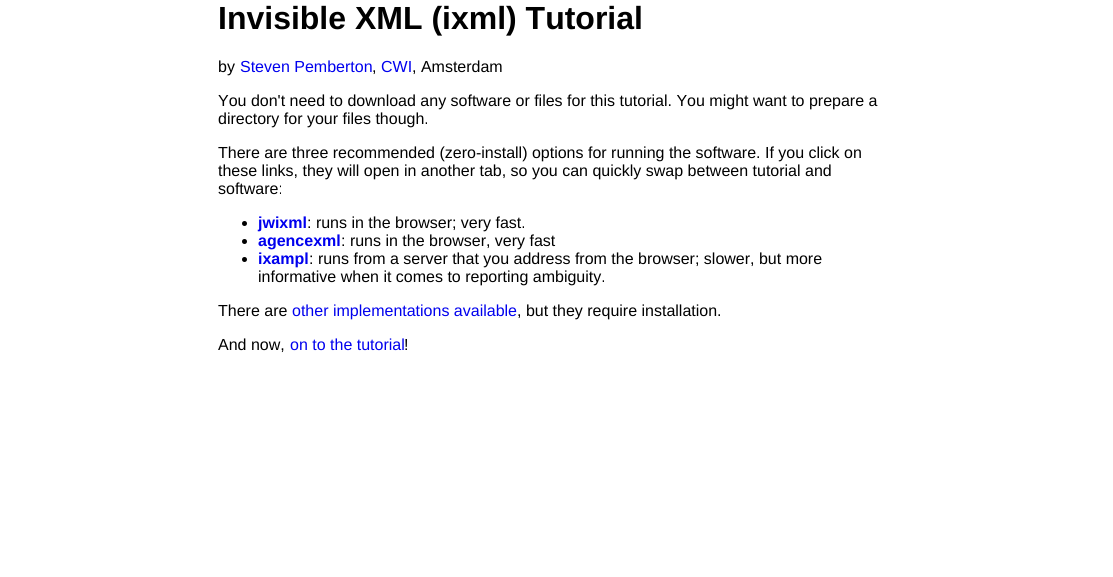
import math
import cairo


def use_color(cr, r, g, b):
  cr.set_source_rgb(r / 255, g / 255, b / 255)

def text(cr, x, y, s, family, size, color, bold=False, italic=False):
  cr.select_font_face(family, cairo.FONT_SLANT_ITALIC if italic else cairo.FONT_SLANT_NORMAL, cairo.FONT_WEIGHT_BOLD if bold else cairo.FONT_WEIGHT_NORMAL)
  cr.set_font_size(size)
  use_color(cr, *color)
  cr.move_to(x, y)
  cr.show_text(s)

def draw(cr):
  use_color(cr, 255, 255, 255)
  cr.paint()
  use_color(cr, 0, 0, 0)
  cr.arc(244.5, 223.5, 2.5, 0, 2 * math.pi)
  cr.fill()
  cr.arc(244.5, 241.5, 2.5, 0, 2 * math.pi)
  cr.fill()
  cr.arc(244.5, 259.5, 2.5, 0, 2 * math.pi)
  cr.fill()
  text(cr, 218, 29, "Invisible XML (ixml) Tutorial", "Liberation Sans", 32, (0, 0, 0), bold=True)
  text(cr, 218, 72, "by", "Liberation Sans", 16, (0, 0, 0))
  text(cr, 240, 72, "Steven Pemberton", "Liberation Sans", 16, (0, 0, 238))
  text(cr, 372, 72, ",", "Liberation Sans", 16, (0, 0, 0))
  text(cr, 381, 72, "CWI", "Liberation Sans", 16, (0, 0, 238))
  text(cr, 412, 72, ", Amsterdam", "Liberation Sans", 16, (0, 0, 0))
  text(cr, 218, 106, "You don't need to download any software or files for this tutorial. You might want to prepare a", "Liberation Sans", 16, (0, 0, 0))
  text(cr, 218, 124, "directory for your files though.", "Liberation Sans", 16, (0, 0, 0))
  text(cr, 218, 158, "There are three recommended (zero-install) options for running the software. If you click on", "Liberation Sans", 16, (0, 0, 0))
  text(cr, 218, 176, "these links, they will open in another tab, so you can quickly swap between tutorial and", "Liberation Sans", 16, (0, 0, 0))
  text(cr, 218, 194, "software:", "Liberation Sans", 16, (0, 0, 0))
  text(cr, 258, 228, "jwixml", "Liberation Sans", 16, (0, 0, 238), bold=True)
  text(cr, 307, 228, ": runs in the browser; very fast.", "Liberation Sans", 16, (0, 0, 0))
  text(cr, 258, 246, "agencexml", "Liberation Sans", 16, (0, 0, 238), bold=True)
  text(cr, 341, 246, ": runs in the browser, very fast", "Liberation Sans", 16, (0, 0, 0))
  text(cr, 258, 264, "ixampl", "Liberation Sans", 16, (0, 0, 238), bold=True)
  text(cr, 309, 264, ": runs from a server that you address from the browser; slower, but more", "Liberation Sans", 16, (0, 0, 0))
  text(cr, 258, 282, "informative when it comes to reporting ambiguity.", "Liberation Sans", 16, (0, 0, 0))
  text(cr, 218, 316, "There are", "Liberation Sans", 16, (0, 0, 0))
  text(cr, 292, 316, "other implementations available", "Liberation Sans", 16, (0, 0, 238))
  text(cr, 517, 316, ", but they require installation.", "Liberation Sans", 16, (0, 0, 0))
  text(cr, 218, 350, "And now,", "Liberation Sans", 16, (0, 0, 0))
  text(cr, 290, 350, "on to the tutorial", "Liberation Sans", 16, (0, 0, 238))
  text(cr, 404, 350, "!", "Liberation Sans", 16, (0, 0, 0))


surface = cairo.ImageSurface(cairo.FORMAT_RGB24, 1113, 577)
cr = cairo.Context(surface)
options = cairo.FontOptions()
options.set_hint_metrics(cairo.HINT_METRICS_OFF)
options.set_hint_style(cairo.HINT_STYLE_NONE)
cr.set_font_options(options)
cr.set_miter_limit(4)
draw(cr)
surface.write_to_png("out.png")
